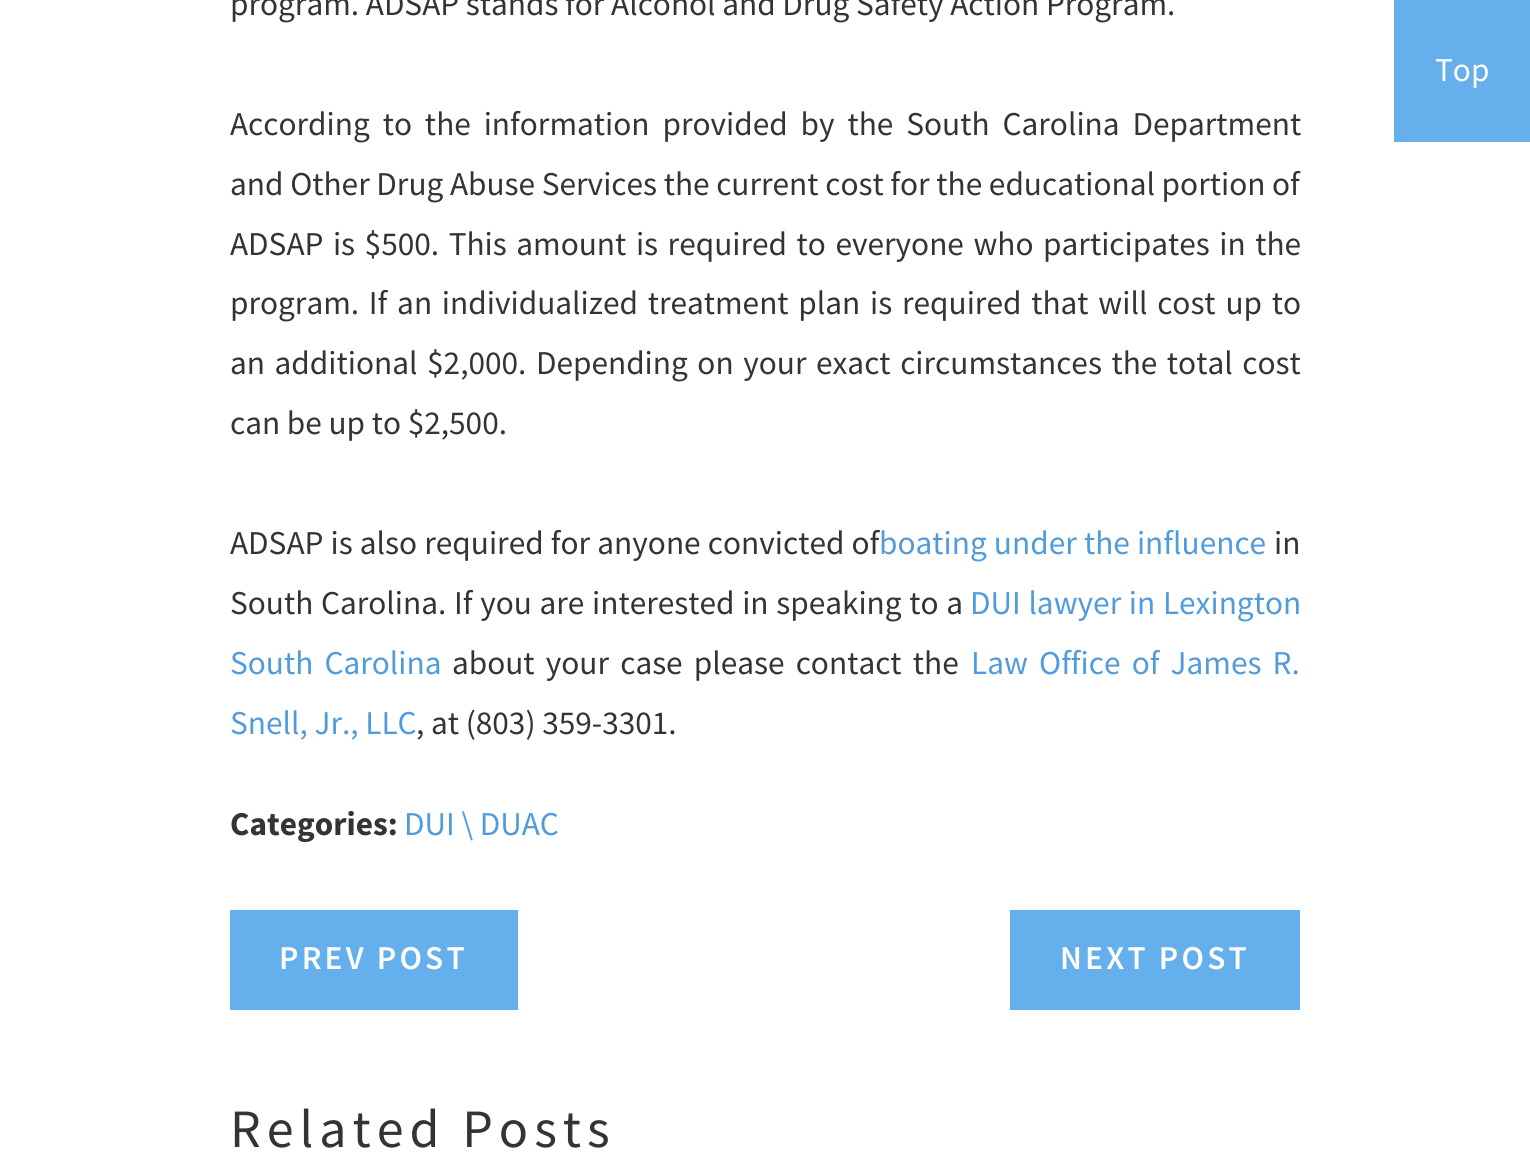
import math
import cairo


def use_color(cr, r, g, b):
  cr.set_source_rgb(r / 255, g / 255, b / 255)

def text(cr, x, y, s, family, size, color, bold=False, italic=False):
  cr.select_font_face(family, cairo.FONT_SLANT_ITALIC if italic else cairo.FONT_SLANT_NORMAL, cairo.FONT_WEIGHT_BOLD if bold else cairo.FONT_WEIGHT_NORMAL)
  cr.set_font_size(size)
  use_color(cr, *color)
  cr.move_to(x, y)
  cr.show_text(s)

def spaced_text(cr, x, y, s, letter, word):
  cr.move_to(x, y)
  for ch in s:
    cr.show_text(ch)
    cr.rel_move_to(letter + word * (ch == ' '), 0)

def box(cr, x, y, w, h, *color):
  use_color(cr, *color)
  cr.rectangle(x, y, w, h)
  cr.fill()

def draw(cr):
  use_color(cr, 255, 255, 255)
  cr.paint()
  box(cr, 230, 910, 288, 100, 102, 175, 237)
  box(cr, 1010, 910, 290, 100, 102, 175, 237)
  box(cr, 1394, 0, 136, 142, 102, 175, 237)
  text(cr, 230, 15, "program. ADSAP stands for Alcohol and Drug Safety Action Program.", "Source Sans Pro", 33.3, (52, 52, 52))
  spaced_text(cr, 230, 135, "According to the information provided by the South Carolina Department", 0, 6.25)
  text(cr, 230, 195, "and Other Drug Abuse Services the current cost for the educational portion of", "Source Sans Pro", 33.3, (52, 52, 52))
  spaced_text(cr, 230, 255, "ADSAP is $500. This amount is required to everyone who participates in the", 0, 2.9)
  spaced_text(cr, 230, 314, "program. If an individualized treatment plan is required that will cost up to", 0, 3.1)
  spaced_text(cr, 230, 374, "an additional $2,000. Depending on your exact circumstances the total cost", 0, 2.9)
  text(cr, 230, 434, "can be up to $2,500.", "Source Sans Pro", 33.3, (52, 52, 52))
  spaced_text(cr, 230, 554, "ADSAP is also required for anyone convicted of", 0, 0.5)
  use_color(cr, 80, 155, 219)
  spaced_text(cr, 879, 554, "boating under the influence", 0, 0.5)
  text(cr, 1274, 554, "in", "Source Sans Pro", 33.3, (52, 52, 52))
  spaced_text(cr, 230, 614, "South Carolina. If you are interested in speaking to a", 0, 1)
  use_color(cr, 80, 155, 219)
  spaced_text(cr, 970, 614, "DUI lawyer in Lexington", 0, 1)
  spaced_text(cr, 230, 674, "South Carolina", 0, 4.5)
  use_color(cr, 52, 52, 52)
  spaced_text(cr, 452, 674, "about your case please contact the", 0, 4.5)
  use_color(cr, 80, 155, 219)
  spaced_text(cr, 971, 674, "Law Office of James R.", 0, 4.5)
  text(cr, 230, 734, "Snell, Jr., LLC", "Source Sans Pro", 33.3, (80, 155, 219))
  text(cr, 416, 734, ", at (803) 359-3301.", "Source Sans Pro", 33.3, (52, 52, 52))
  text(cr, 230, 835, "Categories:", "Source Sans Pro", 33.3, (52, 52, 52), bold=True)
  text(cr, 404, 835, "DUI \\ DUAC", "Source Sans Pro", 33.3, (80, 155, 219))
  cr.select_font_face("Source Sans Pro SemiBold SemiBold")
  use_color(cr, 255, 255, 255)
  spaced_text(cr, 279, 969, "PREV POST", 3.25, 0)
  spaced_text(cr, 1060, 969, "NEXT POST", 3.25, 0)
  cr.select_font_face("Source Sans Pro")
  cr.set_font_size(54)
  use_color(cr, 52, 52, 52)
  spaced_text(cr, 230, 1147, "Related Posts", 6, 0)
  text(cr, 1435, 81, "Top", "Source Sans Pro", 33.3, (255, 255, 255))


surface = cairo.ImageSurface(cairo.FORMAT_RGB24, 1530, 1155)
cr = cairo.Context(surface)
options = cairo.FontOptions()
options.set_hint_metrics(cairo.HINT_METRICS_OFF)
options.set_hint_style(cairo.HINT_STYLE_NONE)
cr.set_font_options(options)
cr.set_miter_limit(4)
draw(cr)
surface.write_to_png("out.png")
